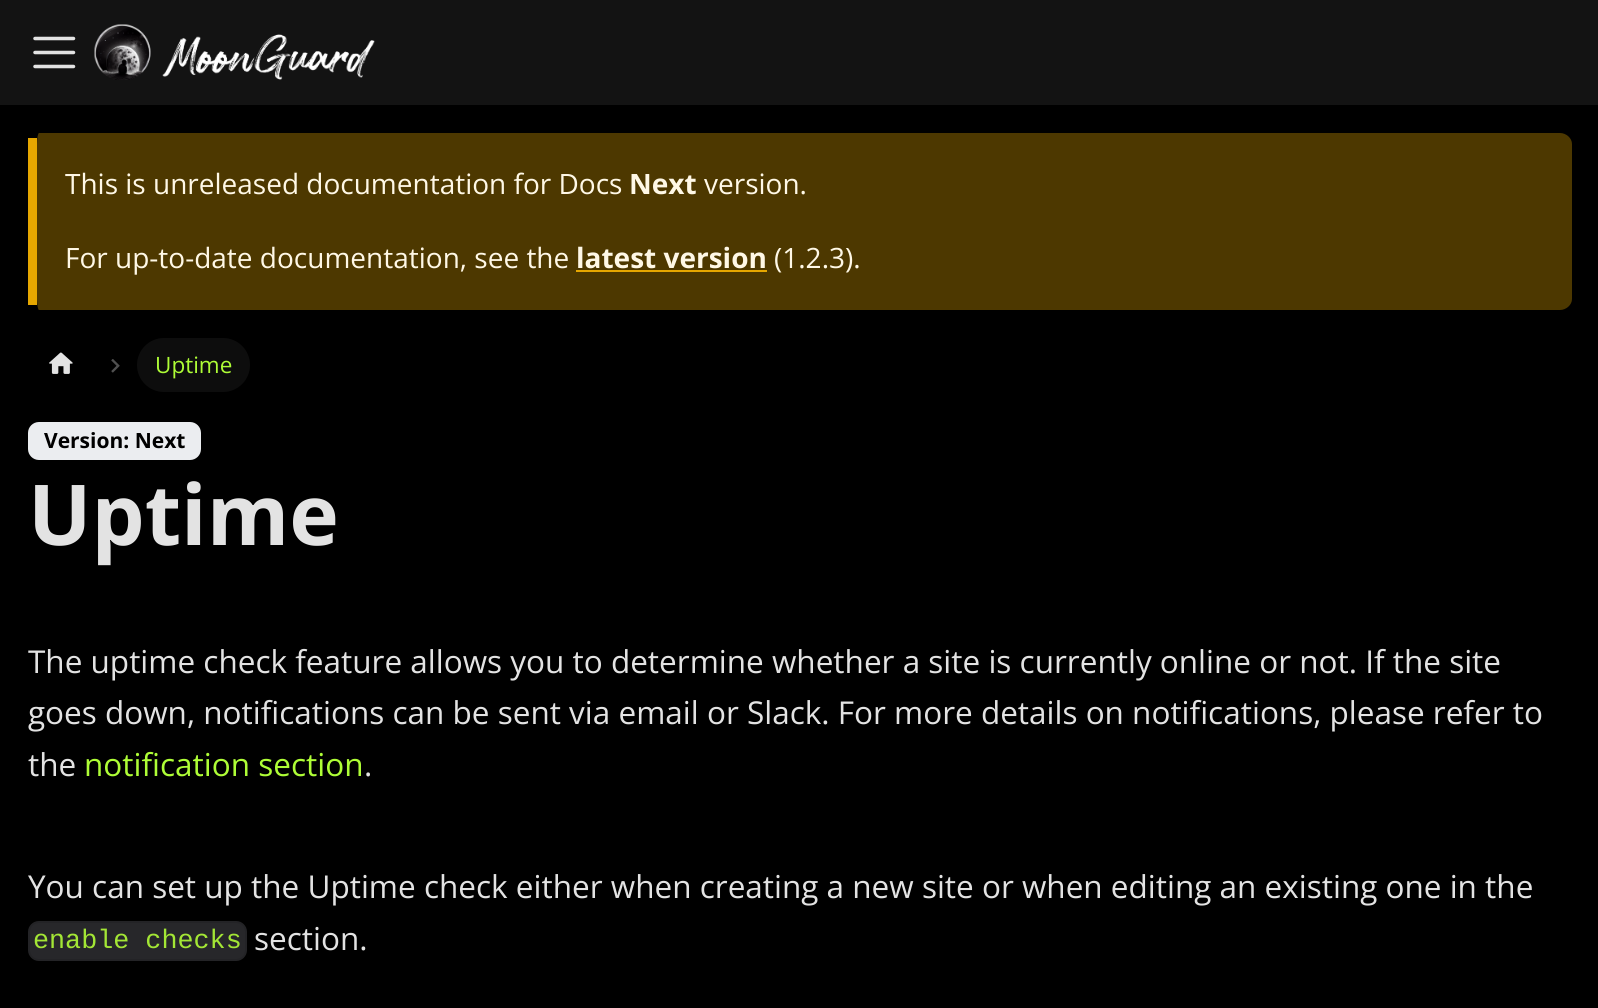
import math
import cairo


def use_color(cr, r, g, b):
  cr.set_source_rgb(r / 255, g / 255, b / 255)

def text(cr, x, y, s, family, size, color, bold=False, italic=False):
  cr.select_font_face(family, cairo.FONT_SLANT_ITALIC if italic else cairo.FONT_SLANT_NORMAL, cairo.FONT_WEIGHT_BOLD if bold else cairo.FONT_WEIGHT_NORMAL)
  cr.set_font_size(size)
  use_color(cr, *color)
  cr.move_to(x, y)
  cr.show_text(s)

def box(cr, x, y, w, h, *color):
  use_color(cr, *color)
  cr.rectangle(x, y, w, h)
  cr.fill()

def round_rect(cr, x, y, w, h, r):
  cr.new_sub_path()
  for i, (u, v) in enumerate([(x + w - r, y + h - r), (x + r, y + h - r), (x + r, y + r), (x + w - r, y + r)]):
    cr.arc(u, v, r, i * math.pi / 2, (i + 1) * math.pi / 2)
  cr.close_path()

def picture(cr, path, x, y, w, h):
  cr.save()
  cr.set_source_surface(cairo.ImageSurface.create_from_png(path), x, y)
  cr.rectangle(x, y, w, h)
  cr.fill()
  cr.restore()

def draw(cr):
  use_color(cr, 0, 0, 0)
  cr.paint()
  box(cr, 0, 0, 1598, 105, 19, 19, 19)
  cr.new_path()
  cr.move_to(35, 38.5)
  cr.line_to(73.5, 38.5)
  cr.move_to(35, 52.5)
  cr.line_to(73.5, 52.5)
  cr.move_to(35, 66.5)
  cr.line_to(73.5, 66.5)
  use_color(cr, 227, 227, 227)
  cr.set_line_width(3.5)
  cr.set_line_cap(cairo.LINE_CAP_ROUND)
  cr.stroke()
  picture(cr, "img_01.png", 94, 24, 281, 56)
  use_color(cr, 77, 56, 0)
  cr.new_path()
  cr.move_to(39, 133)
  cr.line_to(1560, 133)
  cr.curve_to(1566, 133, 1572, 138, 1572, 144)
  cr.line_to(1572, 299)
  cr.curve_to(1572, 305, 1566, 310, 1560, 310)
  cr.line_to(39, 310)
  cr.curve_to(38, 310, 37, 305, 37, 299)
  cr.line_to(37, 144)
  cr.curve_to(37, 138, 38, 133, 39, 133)
  cr.close_path()
  cr.fill()
  box(cr, 28, 138, 9, 167, 230, 167, 0)
  box(cr, 576, 270, 191, 2, 230, 167, 0)
  picture(cr, "img_02.png", 49, 352, 24, 22)
  picture(cr, "img_03.png", 111, 359, 9, 14)
  use_color(cr, 13, 13, 13)
  round_rect(cr, 137, 338, 113, 54, 27)
  cr.fill()
  use_color(cr, 235, 237, 240)
  round_rect(cr, 29, 423, 171, 36, 10)
  cr.fill_preserve()
  cr.set_line_width(2)
  cr.set_line_cap(cairo.LINE_CAP_BUTT)
  cr.stroke()
  use_color(cr, 39, 39, 42)
  round_rect(cr, 28, 921, 219, 40, 11)
  cr.fill()
  round_rect(cr, 29, 922, 217, 38, 10)
  cr.set_source_rgba(0, 0, 0, 0.1)
  cr.stroke()
  text(cr, 65, 194, "This is unreleased documentation for Docs", "Open Sans", 28, (255, 248, 230))
  text(cr, 629, 194, "Next", "Open Sans", 28, (255, 248, 230), bold=True)
  text(cr, 704, 194, "version.", "Open Sans", 28, (255, 248, 230))
  text(cr, 65, 268, "For up-to-date documentation, see the", "Open Sans", 28, (255, 248, 230))
  text(cr, 576, 268, "latest version", "Open Sans", 28, (255, 248, 230), bold=True)
  text(cr, 774, 268, "(1.2.3).", "Open Sans", 28, (255, 248, 230))
  text(cr, 155, 373, "Uptime", "Open Sans", 22.5, (174, 253, 54))
  text(cr, 44, 448, "Version: Next", "Open Sans", 21, (0, 0, 0), bold=True)
  text(cr, 28, 545, "Uptime", "Open Sans", 84, (227, 227, 227), bold=True)
  text(cr, 28, 673, "The uptime check feature allows you to determine whether a site is currently online or not. If the site", "Open Sans", 31.5, (227, 227, 227))
  text(cr, 28, 724, "goes down, notifications can be sent via email or Slack. For more details on notifications, please refer to", "Open Sans", 31.5, (227, 227, 227))
  text(cr, 28, 776, "the", "Open Sans", 31.5, (227, 227, 227))
  text(cr, 84, 776, "notification section", "Open Sans", 31.5, (174, 253, 54))
  text(cr, 364, 776, ".", "Open Sans", 31.5, (227, 227, 227))
  text(cr, 28, 898, "You can set up the Uptime check either when creating a new site or when editing an existing one in the", "Open Sans", 31.5, (227, 227, 227))
  text(cr, 33, 948, "enable checks", "Liberation Mono", 26.75, (163, 230, 53))
  text(cr, 254, 950, "section.", "Open Sans", 31.5, (227, 227, 227))


surface = cairo.ImageSurface(cairo.FORMAT_RGB24, 1598, 1008)
cr = cairo.Context(surface)
options = cairo.FontOptions()
options.set_hint_metrics(cairo.HINT_METRICS_OFF)
options.set_hint_style(cairo.HINT_STYLE_NONE)
cr.set_font_options(options)
cr.set_miter_limit(4)
draw(cr)
surface.write_to_png("out.png")
